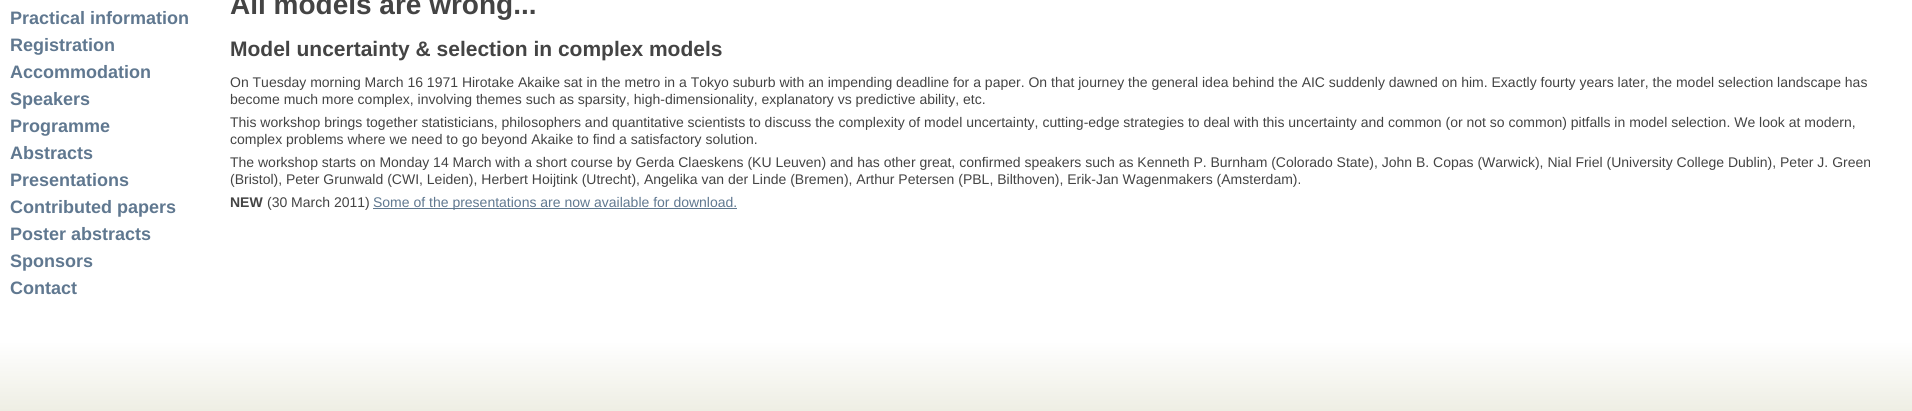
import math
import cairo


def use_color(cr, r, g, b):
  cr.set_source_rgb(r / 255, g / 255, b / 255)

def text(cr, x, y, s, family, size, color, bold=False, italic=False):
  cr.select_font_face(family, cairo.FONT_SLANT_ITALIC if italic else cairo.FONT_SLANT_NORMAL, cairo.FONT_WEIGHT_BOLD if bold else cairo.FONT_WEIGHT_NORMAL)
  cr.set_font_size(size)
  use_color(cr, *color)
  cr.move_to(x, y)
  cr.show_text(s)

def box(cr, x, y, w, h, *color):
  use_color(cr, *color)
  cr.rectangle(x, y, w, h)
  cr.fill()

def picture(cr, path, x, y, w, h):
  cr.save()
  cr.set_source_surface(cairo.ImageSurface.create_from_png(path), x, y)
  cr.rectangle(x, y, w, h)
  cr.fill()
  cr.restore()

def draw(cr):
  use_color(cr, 255, 255, 255)
  cr.paint()
  box(cr, 373, 208, 364, 1, 96, 120, 144)
  picture(cr, "img_01.png", 0, 342, 1912, 69)
  text(cr, 10, 24, "Practical information", "Liberation Sans", 18, (96, 120, 144), bold=True)
  text(cr, 10, 51, "Registration", "Liberation Sans", 18, (96, 120, 144), bold=True)
  text(cr, 10, 78, "Accommodation", "Liberation Sans", 18, (96, 120, 144), bold=True)
  text(cr, 10, 105, "Speakers", "Liberation Sans", 18, (96, 120, 144), bold=True)
  text(cr, 10, 132, "Programme", "Liberation Sans", 18, (96, 120, 144), bold=True)
  text(cr, 10, 159, "Abstracts", "Liberation Sans", 18, (96, 120, 144), bold=True)
  text(cr, 10, 186, "Presentations", "Liberation Sans", 18, (96, 120, 144), bold=True)
  text(cr, 10, 213, "Contributed papers", "Liberation Sans", 18, (96, 120, 144), bold=True)
  text(cr, 10, 240, "Poster abstracts", "Liberation Sans", 18, (96, 120, 144), bold=True)
  text(cr, 10, 267, "Sponsors", "Liberation Sans", 18, (96, 120, 144), bold=True)
  text(cr, 10, 294, "Contact", "Liberation Sans", 18, (96, 120, 144), bold=True)
  text(cr, 230, 14, "All models are wrong...", "Liberation Sans", 28, (68, 68, 68), bold=True)
  text(cr, 230, 56, "Model uncertainty & selection in complex models", "Liberation Sans", 21, (68, 68, 68), bold=True)
  text(cr, 230, 87, "On Tuesday morning March 16 1971 Hirotake Akaike sat in the metro in a Tokyo suburb with an impending deadline for a paper. On that journey the general idea behind the AIC suddenly dawned on him. Exactly fourty years later, the model selection landscape has", "Liberation Sans", 14, (68, 68, 68))
  text(cr, 230, 104, "become much more complex, involving themes such as sparsity, high-dimensionality, explanatory vs predictive ability, etc.", "Liberation Sans", 14, (68, 68, 68))
  text(cr, 230, 127, "This workshop brings together statisticians, philosophers and quantitative scientists to discuss the complexity of model uncertainty, cutting-edge strategies to deal with this uncertainty and common (or not so common) pitfalls in model selection. We look at modern,", "Liberation Sans", 14, (68, 68, 68))
  text(cr, 230, 144, "complex problems where we need to go beyond Akaike to find a satisfactory solution.", "Liberation Sans", 14, (68, 68, 68))
  text(cr, 230, 167, "The workshop starts on Monday 14 March with a short course by Gerda Claeskens (KU Leuven) and has other great, confirmed speakers such as Kenneth P. Burnham (Colorado State), John B. Copas (Warwick), Nial Friel (University College Dublin), Peter J. Green", "Liberation Sans", 14, (68, 68, 68))
  text(cr, 230, 184, "(Bristol), Peter Grunwald (CWI, Leiden), Herbert Hoijtink (Utrecht), Angelika van der Linde (Bremen), Arthur Petersen (PBL, Bilthoven), Erik-Jan Wagenmakers (Amsterdam).", "Liberation Sans", 14, (68, 68, 68))
  text(cr, 230, 207, "NEW", "Liberation Sans", 14, (68, 68, 68), bold=True)
  text(cr, 267, 207, "(30 March 2011)", "Liberation Sans", 14, (68, 68, 68))
  text(cr, 373, 207, "Some of the presentations are now available for download.", "Liberation Sans", 14, (96, 120, 144))


surface = cairo.ImageSurface(cairo.FORMAT_RGB24, 1912, 411)
cr = cairo.Context(surface)
options = cairo.FontOptions()
options.set_hint_metrics(cairo.HINT_METRICS_OFF)
options.set_hint_style(cairo.HINT_STYLE_NONE)
cr.set_font_options(options)
cr.set_miter_limit(4)
draw(cr)
surface.write_to_png("out.png")
